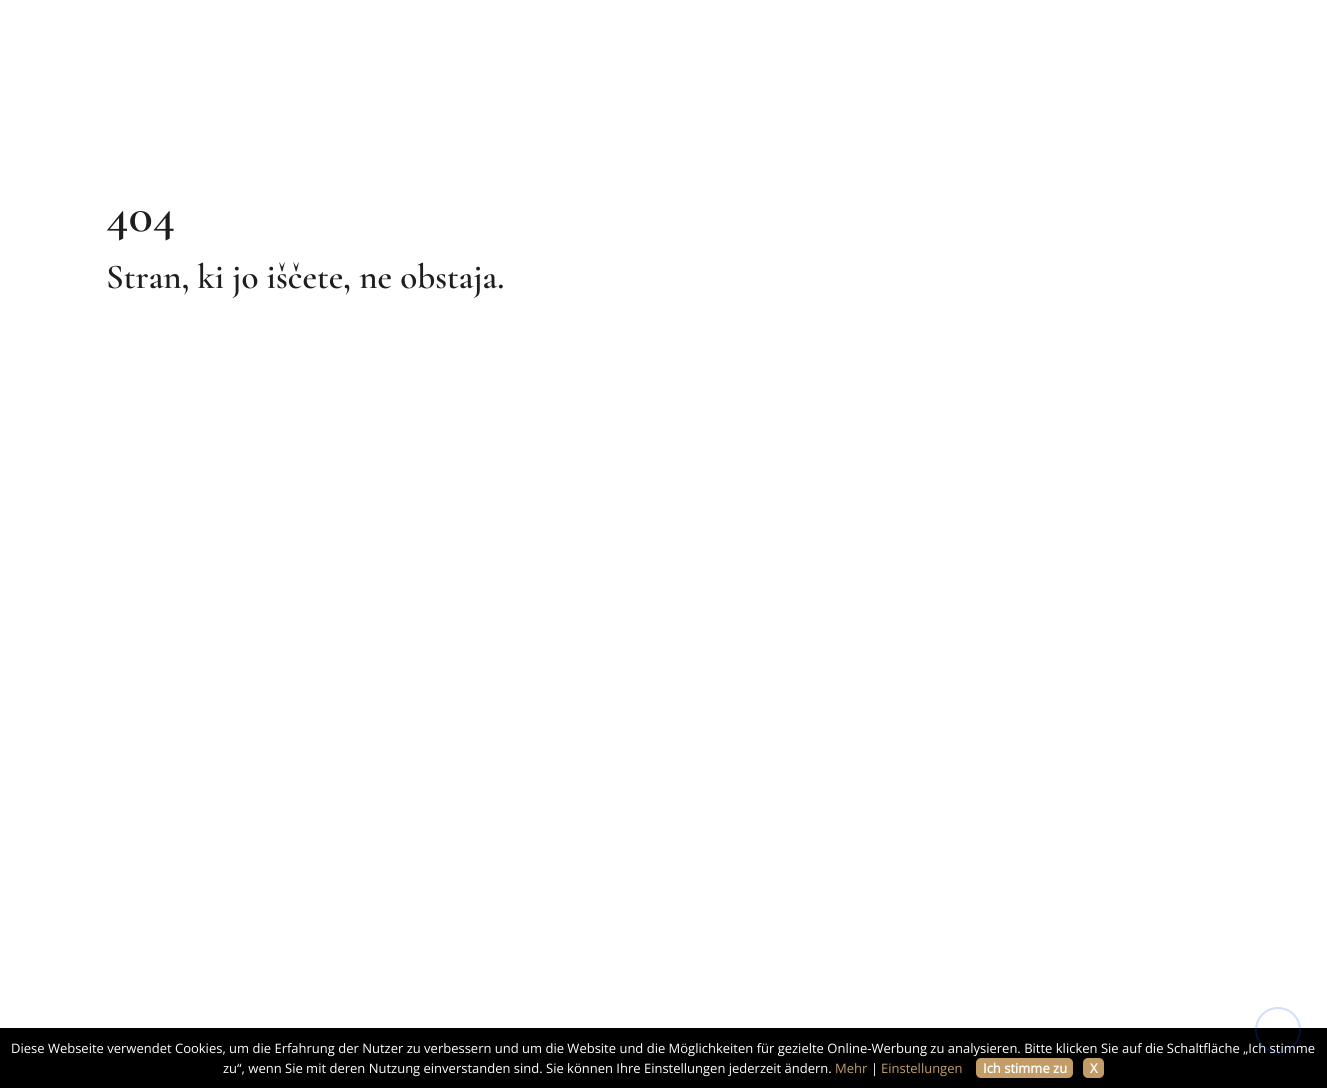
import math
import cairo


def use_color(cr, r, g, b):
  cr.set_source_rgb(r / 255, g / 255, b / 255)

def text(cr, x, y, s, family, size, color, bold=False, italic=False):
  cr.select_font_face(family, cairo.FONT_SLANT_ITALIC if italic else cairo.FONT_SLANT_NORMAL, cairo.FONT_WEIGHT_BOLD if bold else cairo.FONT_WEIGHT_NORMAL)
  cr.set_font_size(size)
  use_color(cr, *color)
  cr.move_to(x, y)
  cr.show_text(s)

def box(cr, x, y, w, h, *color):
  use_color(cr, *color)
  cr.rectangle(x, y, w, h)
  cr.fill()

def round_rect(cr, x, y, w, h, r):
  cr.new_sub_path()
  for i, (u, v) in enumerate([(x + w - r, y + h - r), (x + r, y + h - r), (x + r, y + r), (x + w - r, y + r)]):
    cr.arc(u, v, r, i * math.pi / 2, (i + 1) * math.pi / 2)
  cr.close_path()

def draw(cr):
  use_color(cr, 255, 255, 255)
  cr.paint()
  box(cr, 0, 1028, 1327, 60, 0, 0, 0)
  use_color(cr, 194, 157, 104)
  round_rect(cr, 976, 1058, 97, 20, 5)
  cr.fill()
  round_rect(cr, 1083, 1058, 21, 20, 5)
  cr.fill()
  text(cr, 106, 231, "404", "Cormorant Garamond SemiBold", 50, (30, 30, 30))
  text(cr, 106, 288, "Stran, ki jo iščete, ne obstaja.", "Cormorant Garamond SemiBold", 35, (30, 30, 30))
  text(cr, 11, 1053, "Diese Webseite verwendet Cookies, um die Erfahrung der Nutzer zu verbessern und um die Website und die Möglichkeiten für gezielte Online-Werbung zu analysieren. Bitte klicken Sie auf die Schaltfläche „Ich stimme", "Open Sans", 13, (255, 255, 255))
  cr.new_path()
  cr.arc(1278, 1030, 22, 0, 2 * math.pi)
  cr.set_source_rgba(0.086, 0.365, 0.961, 0.2)
  cr.stroke()
  text(cr, 223, 1073, "zu“, wenn Sie mit deren Nutzung einverstanden sind. Sie können Ihre Einstellungen jederzeit ändern.", "Open Sans", 13, (255, 255, 255))
  text(cr, 835, 1073, "Mehr", "Open Sans", 13, (194, 157, 104))
  text(cr, 871, 1073, "|", "Open Sans", 13, (255, 255, 255))
  text(cr, 881, 1073, "Einstellungen", "Open Sans", 13, (194, 157, 104))
  text(cr, 983, 1073, "Ich stimme zu", "Open Sans", 13, (255, 255, 255), bold=True)
  text(cr, 1090, 1073, "X", "Open Sans", 13, (255, 255, 255), bold=True)


surface = cairo.ImageSurface(cairo.FORMAT_RGB24, 1327, 1088)
cr = cairo.Context(surface)
options = cairo.FontOptions()
options.set_hint_metrics(cairo.HINT_METRICS_OFF)
options.set_hint_style(cairo.HINT_STYLE_NONE)
cr.set_font_options(options)
cr.set_miter_limit(4)
draw(cr)
surface.write_to_png("out.png")
